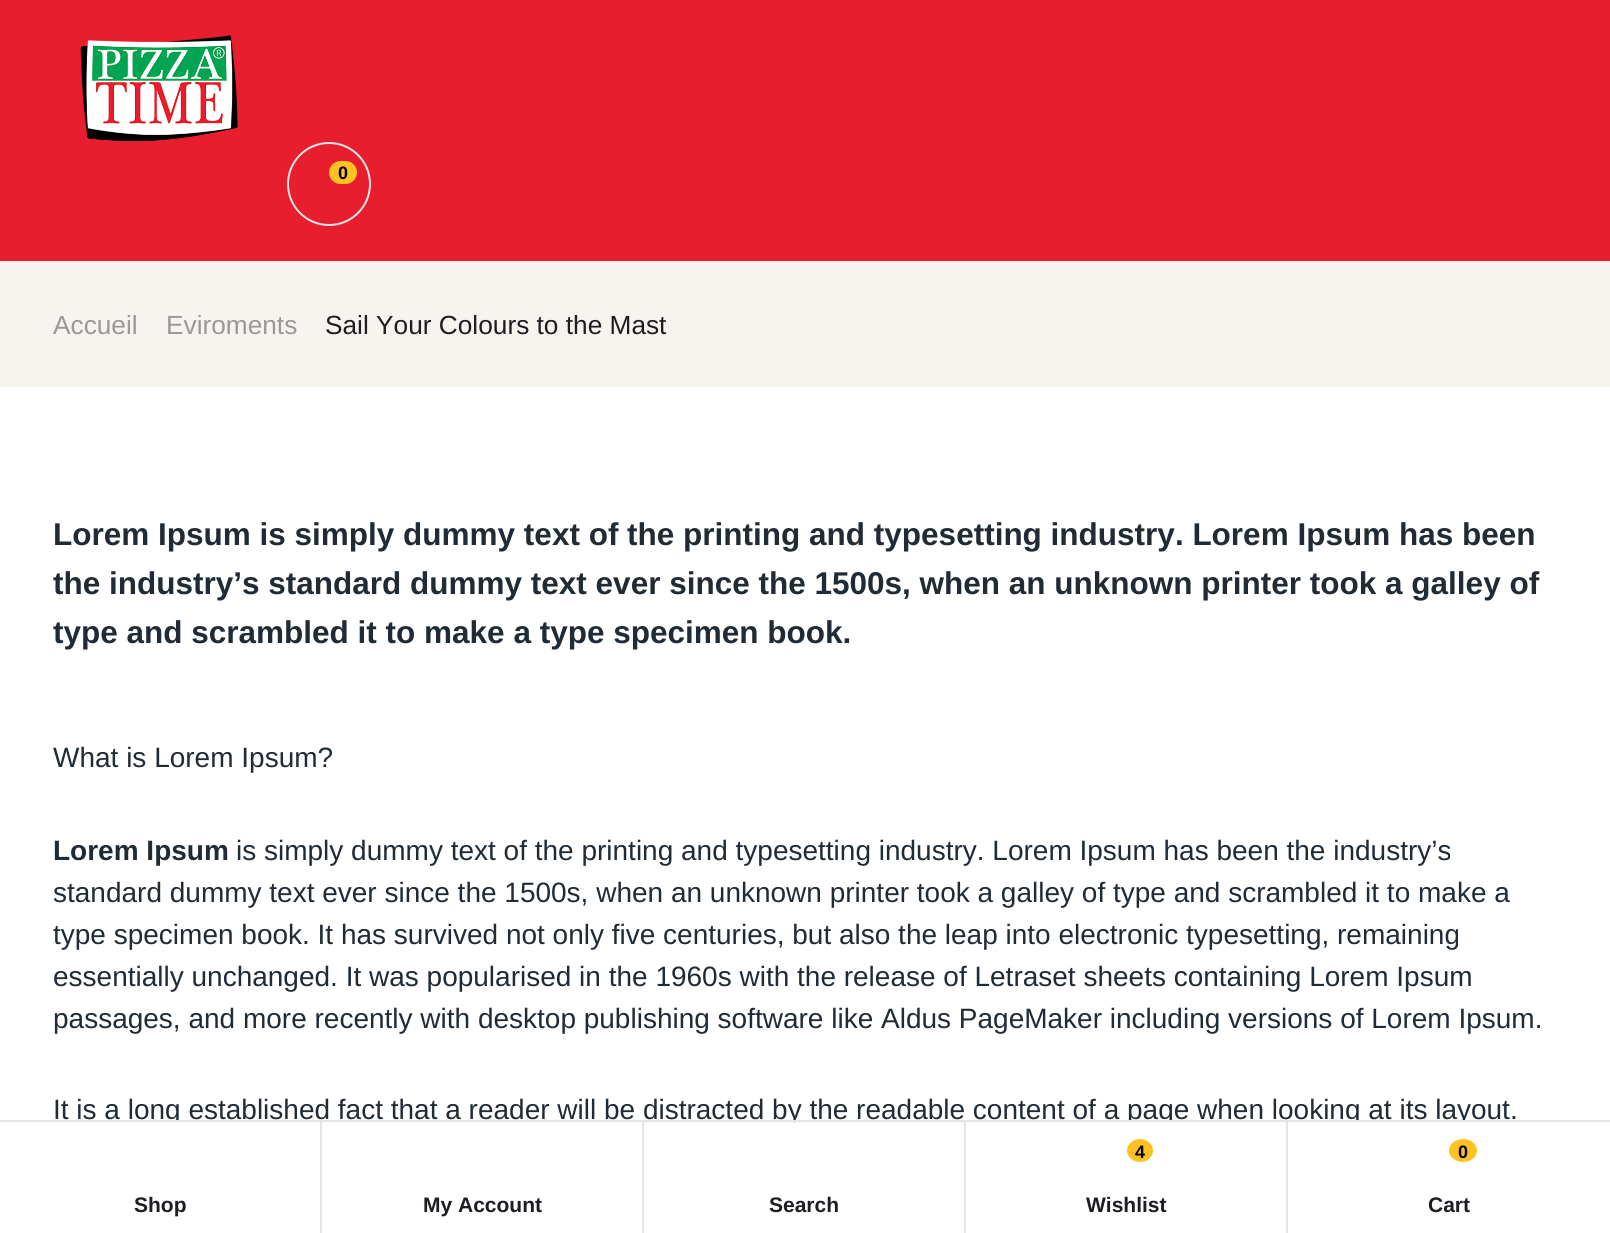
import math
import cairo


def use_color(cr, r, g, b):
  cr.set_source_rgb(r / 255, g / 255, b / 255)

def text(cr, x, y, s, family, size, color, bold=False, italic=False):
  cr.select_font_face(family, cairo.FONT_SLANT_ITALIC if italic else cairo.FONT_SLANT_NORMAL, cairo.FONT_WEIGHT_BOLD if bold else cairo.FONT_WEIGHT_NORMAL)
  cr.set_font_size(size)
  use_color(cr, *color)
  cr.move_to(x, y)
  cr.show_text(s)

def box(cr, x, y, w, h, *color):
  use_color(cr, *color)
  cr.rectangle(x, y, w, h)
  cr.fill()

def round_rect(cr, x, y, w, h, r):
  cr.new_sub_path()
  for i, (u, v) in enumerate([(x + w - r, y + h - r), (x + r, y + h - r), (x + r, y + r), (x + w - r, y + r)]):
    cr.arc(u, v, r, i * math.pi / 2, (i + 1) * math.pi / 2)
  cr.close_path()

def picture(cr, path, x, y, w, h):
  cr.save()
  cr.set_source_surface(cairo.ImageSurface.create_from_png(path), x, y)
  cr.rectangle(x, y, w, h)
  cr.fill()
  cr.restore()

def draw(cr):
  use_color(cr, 255, 255, 255)
  cr.paint()
  box(cr, 0, 0, 1610, 261, 232, 29, 45)
  picture(cr, "img_01.png", 80, 35, 158, 107)
  cr.arc(329, 184, 41, 0, 2 * math.pi)
  use_color(cr, 229, 229, 229)
  cr.stroke()
  use_color(cr, 255, 194, 34)
  round_rect(cr, 329, 161, 28, 23, 11.5)
  cr.fill()
  box(cr, 0, 261, 1610, 126, 247, 244, 239)
  use_color(cr, 255, 194, 34)
  cr.new_path()
  cr.move_to(1140, 1139)
  cr.curve_to(1147, 1139, 1153, 1144, 1153, 1150.5)
  cr.curve_to(1153, 1157, 1147, 1162, 1140, 1162)
  cr.curve_to(1133, 1162, 1127, 1157, 1127, 1150.5)
  cr.curve_to(1127, 1144, 1133, 1139, 1140, 1139)
  cr.close_path()
  cr.fill()
  cr.new_path()
  cr.move_to(1463, 1139)
  cr.curve_to(1470.5, 1139, 1477, 1144, 1477, 1150.5)
  cr.curve_to(1477, 1157, 1470.5, 1162, 1463, 1162)
  cr.curve_to(1455.5, 1162, 1449, 1157, 1449, 1150.5)
  cr.curve_to(1449, 1144, 1455.5, 1139, 1463, 1139)
  cr.close_path()
  cr.fill()
  text(cr, 338, 179, "0", "Liberation Sans", 18, (0, 0, 0), bold=True)
  text(cr, 53, 334, "Accueil", "Liberation Sans", 26.25, (153, 153, 153))
  text(cr, 166, 334, "Eviroments", "Liberation Sans", 26.25, (153, 153, 153))
  text(cr, 325, 334, "Sail Your Colours to the Mast", "Liberation Sans", 26.25, (30, 29, 35))
  text(cr, 53, 545, "Lorem Ipsum is simply dummy text of the printing and typesetting industry. Lorem Ipsum has been", "Liberation Sans", 31.5, (33, 43, 54), bold=True)
  text(cr, 53, 594, "the industry’s standard dummy text ever since the 1500s, when an unknown printer took a galley of", "Liberation Sans", 31.5, (33, 43, 54), bold=True)
  text(cr, 53, 643, "type and scrambled it to make a type specimen book.", "Liberation Sans", 31.5, (33, 43, 54), bold=True)
  text(cr, 53, 767, "What is Lorem Ipsum?", "Liberation Sans", 28, (33, 43, 54))
  text(cr, 53, 860, "Lorem Ipsum", "Liberation Sans", 28, (33, 43, 54), bold=True)
  text(cr, 236, 860, "is simply dummy text of the printing and typesetting industry. Lorem Ipsum has been the industry’s", "Liberation Sans", 28, (33, 43, 54))
  text(cr, 53, 902, "standard dummy text ever since the 1500s, when an unknown printer took a galley of type and scrambled it to make a", "Liberation Sans", 28, (33, 43, 54))
  text(cr, 53, 944, "type specimen book. It has survived not only five centuries, but also the leap into electronic typesetting, remaining", "Liberation Sans", 28, (33, 43, 54))
  text(cr, 53, 986, "essentially unchanged. It was popularised in the 1960s with the release of Letraset sheets containing Lorem Ipsum", "Liberation Sans", 28, (33, 43, 54))
  text(cr, 53, 1028, "passages, and more recently with desktop publishing software like Aldus PageMaker including versions of Lorem Ipsum.", "Liberation Sans", 28, (33, 43, 54))
  text(cr, 53, 1119, "It is a long established fact that a reader will be distracted by the readable content of a page when looking at its layout.", "Liberation Sans", 28, (33, 43, 54))
  box(cr, 0, 1120, 1610, 2, 229, 229, 229)
  box(cr, 166, 1122, 12, 3, 255, 255, 255)
  box(cr, 320, 1122, 2, 111, 229, 229, 229)
  text(cr, 134, 1212, "Shop", "Liberation Sans", 21, (30, 29, 35), bold=True)
  box(cr, 642, 1122, 2, 111, 229, 229, 229)
  text(cr, 423, 1212, "My Account", "Liberation Sans", 21, (30, 29, 35), bold=True)
  box(cr, 788, 1122, 6, 3, 255, 255, 255)
  box(cr, 964, 1122, 2, 111, 229, 229, 229)
  text(cr, 769, 1212, "Search", "Liberation Sans", 21, (30, 29, 35), bold=True)
  box(cr, 1128, 1122, 43, 3, 255, 255, 255)
  box(cr, 1286, 1122, 2, 111, 229, 229, 229)
  text(cr, 1135, 1158, "4", "Liberation Sans", 18, (0, 0, 0), bold=True)
  text(cr, 1086, 1212, "Wishlist", "Liberation Sans", 21, (30, 29, 35), bold=True)
  box(cr, 1346, 1122, 118, 3, 255, 255, 255)
  text(cr, 1458, 1158, "0", "Liberation Sans", 18, (0, 0, 0), bold=True)
  text(cr, 1428, 1212, "Cart", "Liberation Sans", 21, (30, 29, 35), bold=True)


surface = cairo.ImageSurface(cairo.FORMAT_RGB24, 1610, 1233)
cr = cairo.Context(surface)
options = cairo.FontOptions()
options.set_hint_metrics(cairo.HINT_METRICS_OFF)
options.set_hint_style(cairo.HINT_STYLE_NONE)
cr.set_font_options(options)
cr.set_miter_limit(4)
draw(cr)
surface.write_to_png("out.png")
